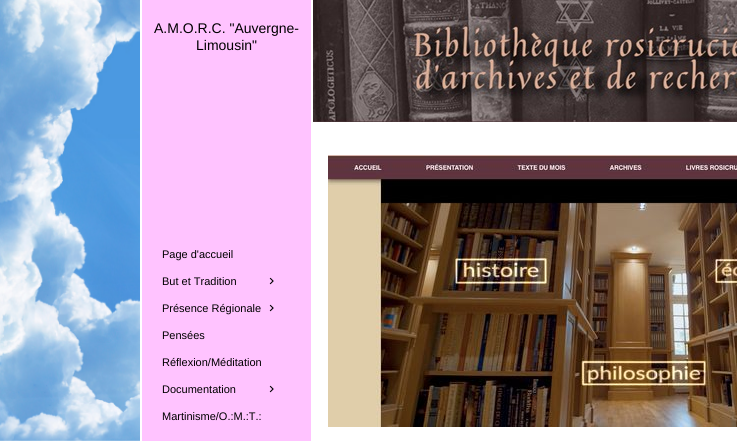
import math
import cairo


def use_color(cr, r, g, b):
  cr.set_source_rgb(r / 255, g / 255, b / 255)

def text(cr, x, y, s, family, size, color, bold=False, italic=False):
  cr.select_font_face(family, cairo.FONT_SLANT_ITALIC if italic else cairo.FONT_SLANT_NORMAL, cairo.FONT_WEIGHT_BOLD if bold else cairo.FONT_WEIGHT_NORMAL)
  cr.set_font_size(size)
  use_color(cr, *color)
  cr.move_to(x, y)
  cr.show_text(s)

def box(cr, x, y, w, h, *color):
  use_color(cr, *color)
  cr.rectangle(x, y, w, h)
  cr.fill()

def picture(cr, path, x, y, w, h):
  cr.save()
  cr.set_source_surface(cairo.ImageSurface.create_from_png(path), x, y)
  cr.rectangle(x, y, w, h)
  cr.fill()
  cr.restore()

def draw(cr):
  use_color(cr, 255, 255, 255)
  cr.paint()
  picture(cr, "img_01.png", 0, 0, 140, 441)
  box(cr, 142, 0, 169, 441, 255, 195, 255)
  picture(cr, "img_02.png", 313, 0, 424, 122)
  picture(cr, "img_03.png", 328, 155, 409, 272)
  picture(cr, "img_04.png", 269, 277, 5, 8)
  picture(cr, "img_04.png", 269, 304, 5, 8)
  picture(cr, "img_04.png", 269, 385, 5, 8)
  text(cr, 154, 33, "A.M.O.R.C. \"Auvergne-", "Liberation Sans", 14, (0, 0, 0))
  text(cr, 196, 50, "Limousin\"", "Liberation Sans", 14, (0, 0, 0))
  text(cr, 162, 258, "Page d'accueil", "Liberation Sans", 11, (0, 0, 0))
  text(cr, 162, 285, "But et Tradition", "Liberation Sans", 11, (0, 0, 0))
  text(cr, 162, 312, "Présence Régionale", "Liberation Sans", 11, (0, 0, 0))
  text(cr, 162, 339, "Pensées", "Liberation Sans", 11, (0, 0, 0))
  text(cr, 162, 366, "Réflexion/Méditation", "Liberation Sans", 11, (0, 0, 0))
  text(cr, 162, 393, "Documentation", "Liberation Sans", 11, (0, 0, 0))
  text(cr, 162, 420, "Martinisme/O.:M.:T.:", "Liberation Sans", 11, (0, 0, 0))


surface = cairo.ImageSurface(cairo.FORMAT_RGB24, 737, 441)
cr = cairo.Context(surface)
options = cairo.FontOptions()
options.set_hint_metrics(cairo.HINT_METRICS_OFF)
options.set_hint_style(cairo.HINT_STYLE_NONE)
cr.set_font_options(options)
cr.set_miter_limit(4)
draw(cr)
surface.write_to_png("out.png")
